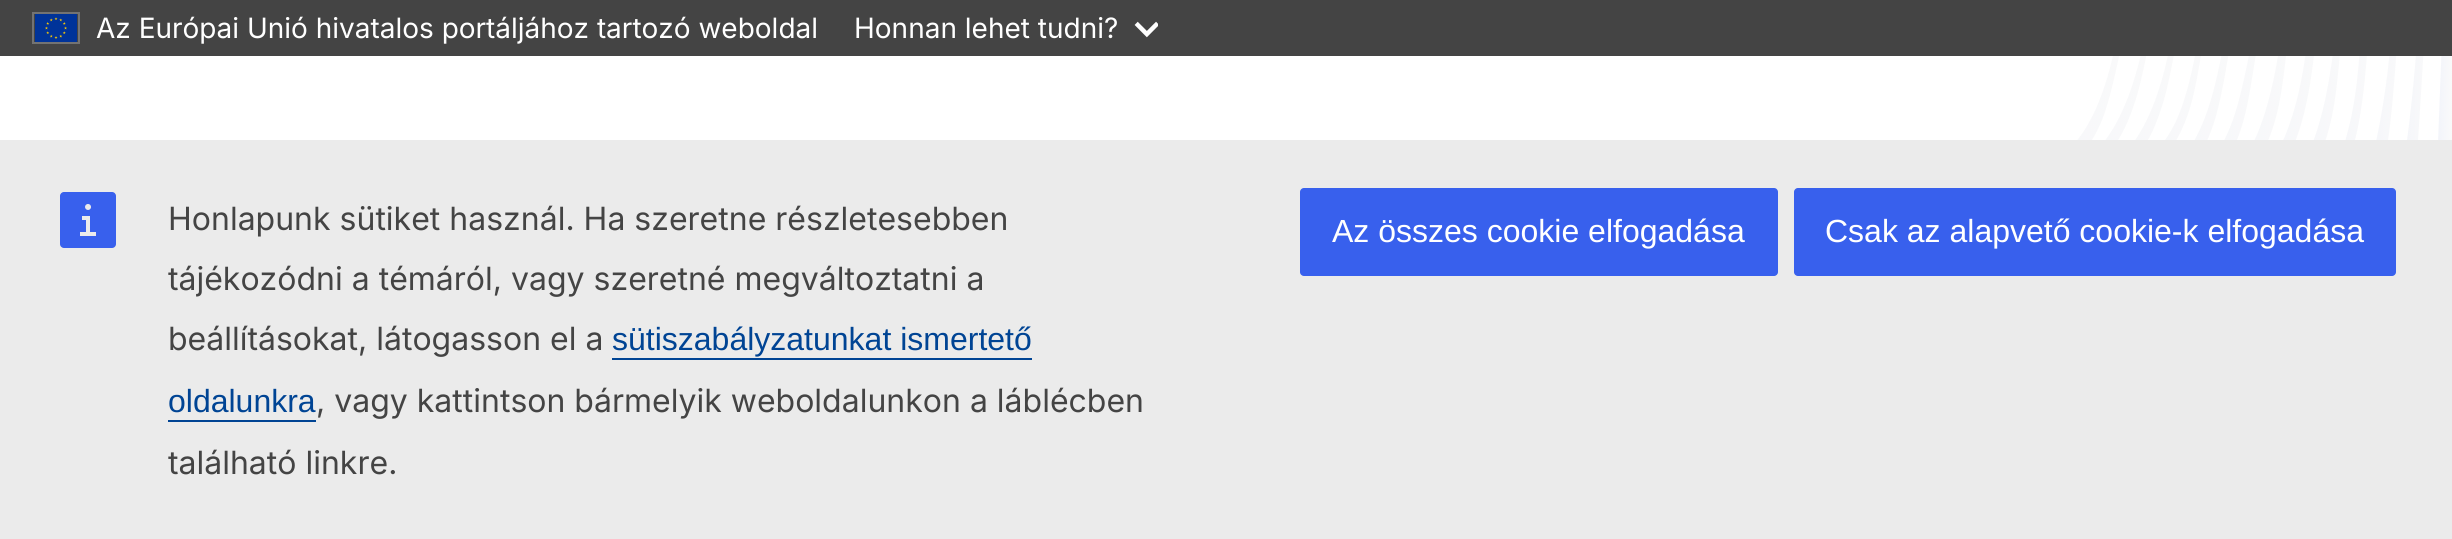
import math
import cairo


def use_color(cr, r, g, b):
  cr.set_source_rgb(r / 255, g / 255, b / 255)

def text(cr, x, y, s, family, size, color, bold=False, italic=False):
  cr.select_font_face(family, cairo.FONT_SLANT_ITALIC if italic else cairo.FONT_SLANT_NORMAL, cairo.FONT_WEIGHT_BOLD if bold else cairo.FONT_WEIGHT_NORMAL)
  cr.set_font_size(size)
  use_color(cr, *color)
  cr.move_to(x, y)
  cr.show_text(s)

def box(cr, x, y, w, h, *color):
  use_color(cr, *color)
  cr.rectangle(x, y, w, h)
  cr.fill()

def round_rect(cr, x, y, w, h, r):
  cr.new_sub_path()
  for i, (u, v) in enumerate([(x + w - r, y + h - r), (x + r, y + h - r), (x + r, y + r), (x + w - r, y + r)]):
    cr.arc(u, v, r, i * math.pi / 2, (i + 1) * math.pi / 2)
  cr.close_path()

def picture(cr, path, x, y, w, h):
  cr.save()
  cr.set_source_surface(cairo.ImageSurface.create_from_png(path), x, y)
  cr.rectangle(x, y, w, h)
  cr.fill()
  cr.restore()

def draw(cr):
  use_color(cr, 68, 68, 68)
  cr.paint()
  cr.rectangle(33, 13, 46, 30)
  use_color(cr, 115, 115, 115)
  cr.stroke()
  picture(cr, "img_01.png", 35, 14, 42, 28)
  picture(cr, "img_02.png", 1134, 21, 24, 17)
  box(cr, 0, 56, 2452, 84, 255, 255, 255)
  picture(cr, "img_03.png", 2077, 56, 375, 84)
  box(cr, 0, 140, 2452, 399, 235, 235, 235)
  picture(cr, "img_04.png", 60, 192, 56, 56)
  box(cr, 612, 358, 420, 2, 0, 68, 148)
  box(cr, 168, 420, 148, 2, 0, 68, 148)
  use_color(cr, 56, 96, 237)
  round_rect(cr, 1300, 188, 478, 88, 4)
  cr.fill()
  round_rect(cr, 1794, 188, 602, 88, 4)
  cr.fill()
  text(cr, 96, 38, "Az Európai Unió hivatalos portáljához tartozó weboldal", "Inter", 28, (255, 255, 255))
  text(cr, 854, 38, "Honnan lehet tudni?", "Inter", 28, (255, 255, 255))
  text(cr, 168, 230, "Honlapunk sütiket használ. Ha szeretne részletesebben", "Inter", 32, (68, 68, 68))
  text(cr, 168, 290, "tájékozódni a témáról, vagy szeretné megváltoztatni a", "Inter", 32, (68, 68, 68))
  text(cr, 168, 350, "beállításokat, látogasson el a", "Inter", 32, (68, 68, 68))
  text(cr, 612, 350, "sütiszabályzatunkat ismertető", "Liberation Sans", 32, (0, 68, 148))
  text(cr, 168, 412, "oldalunkra", "Liberation Sans", 32, (0, 68, 148))
  text(cr, 316, 412, ", vagy kattintson bármelyik weboldalunkon a láblécben", "Inter", 32, (68, 68, 68))
  text(cr, 168, 474, "található linkre.", "Inter", 32, (68, 68, 68))
  text(cr, 1332, 242, "Az összes cookie elfogadása", "Liberation Sans", 32, (255, 255, 255))
  text(cr, 1825, 242, "Csak az alapvető cookie-k elfogadása", "Liberation Sans", 32, (255, 255, 255))


surface = cairo.ImageSurface(cairo.FORMAT_RGB24, 2452, 539)
cr = cairo.Context(surface)
options = cairo.FontOptions()
options.set_hint_metrics(cairo.HINT_METRICS_OFF)
options.set_hint_style(cairo.HINT_STYLE_NONE)
cr.set_font_options(options)
cr.set_miter_limit(4)
draw(cr)
surface.write_to_png("out.png")
